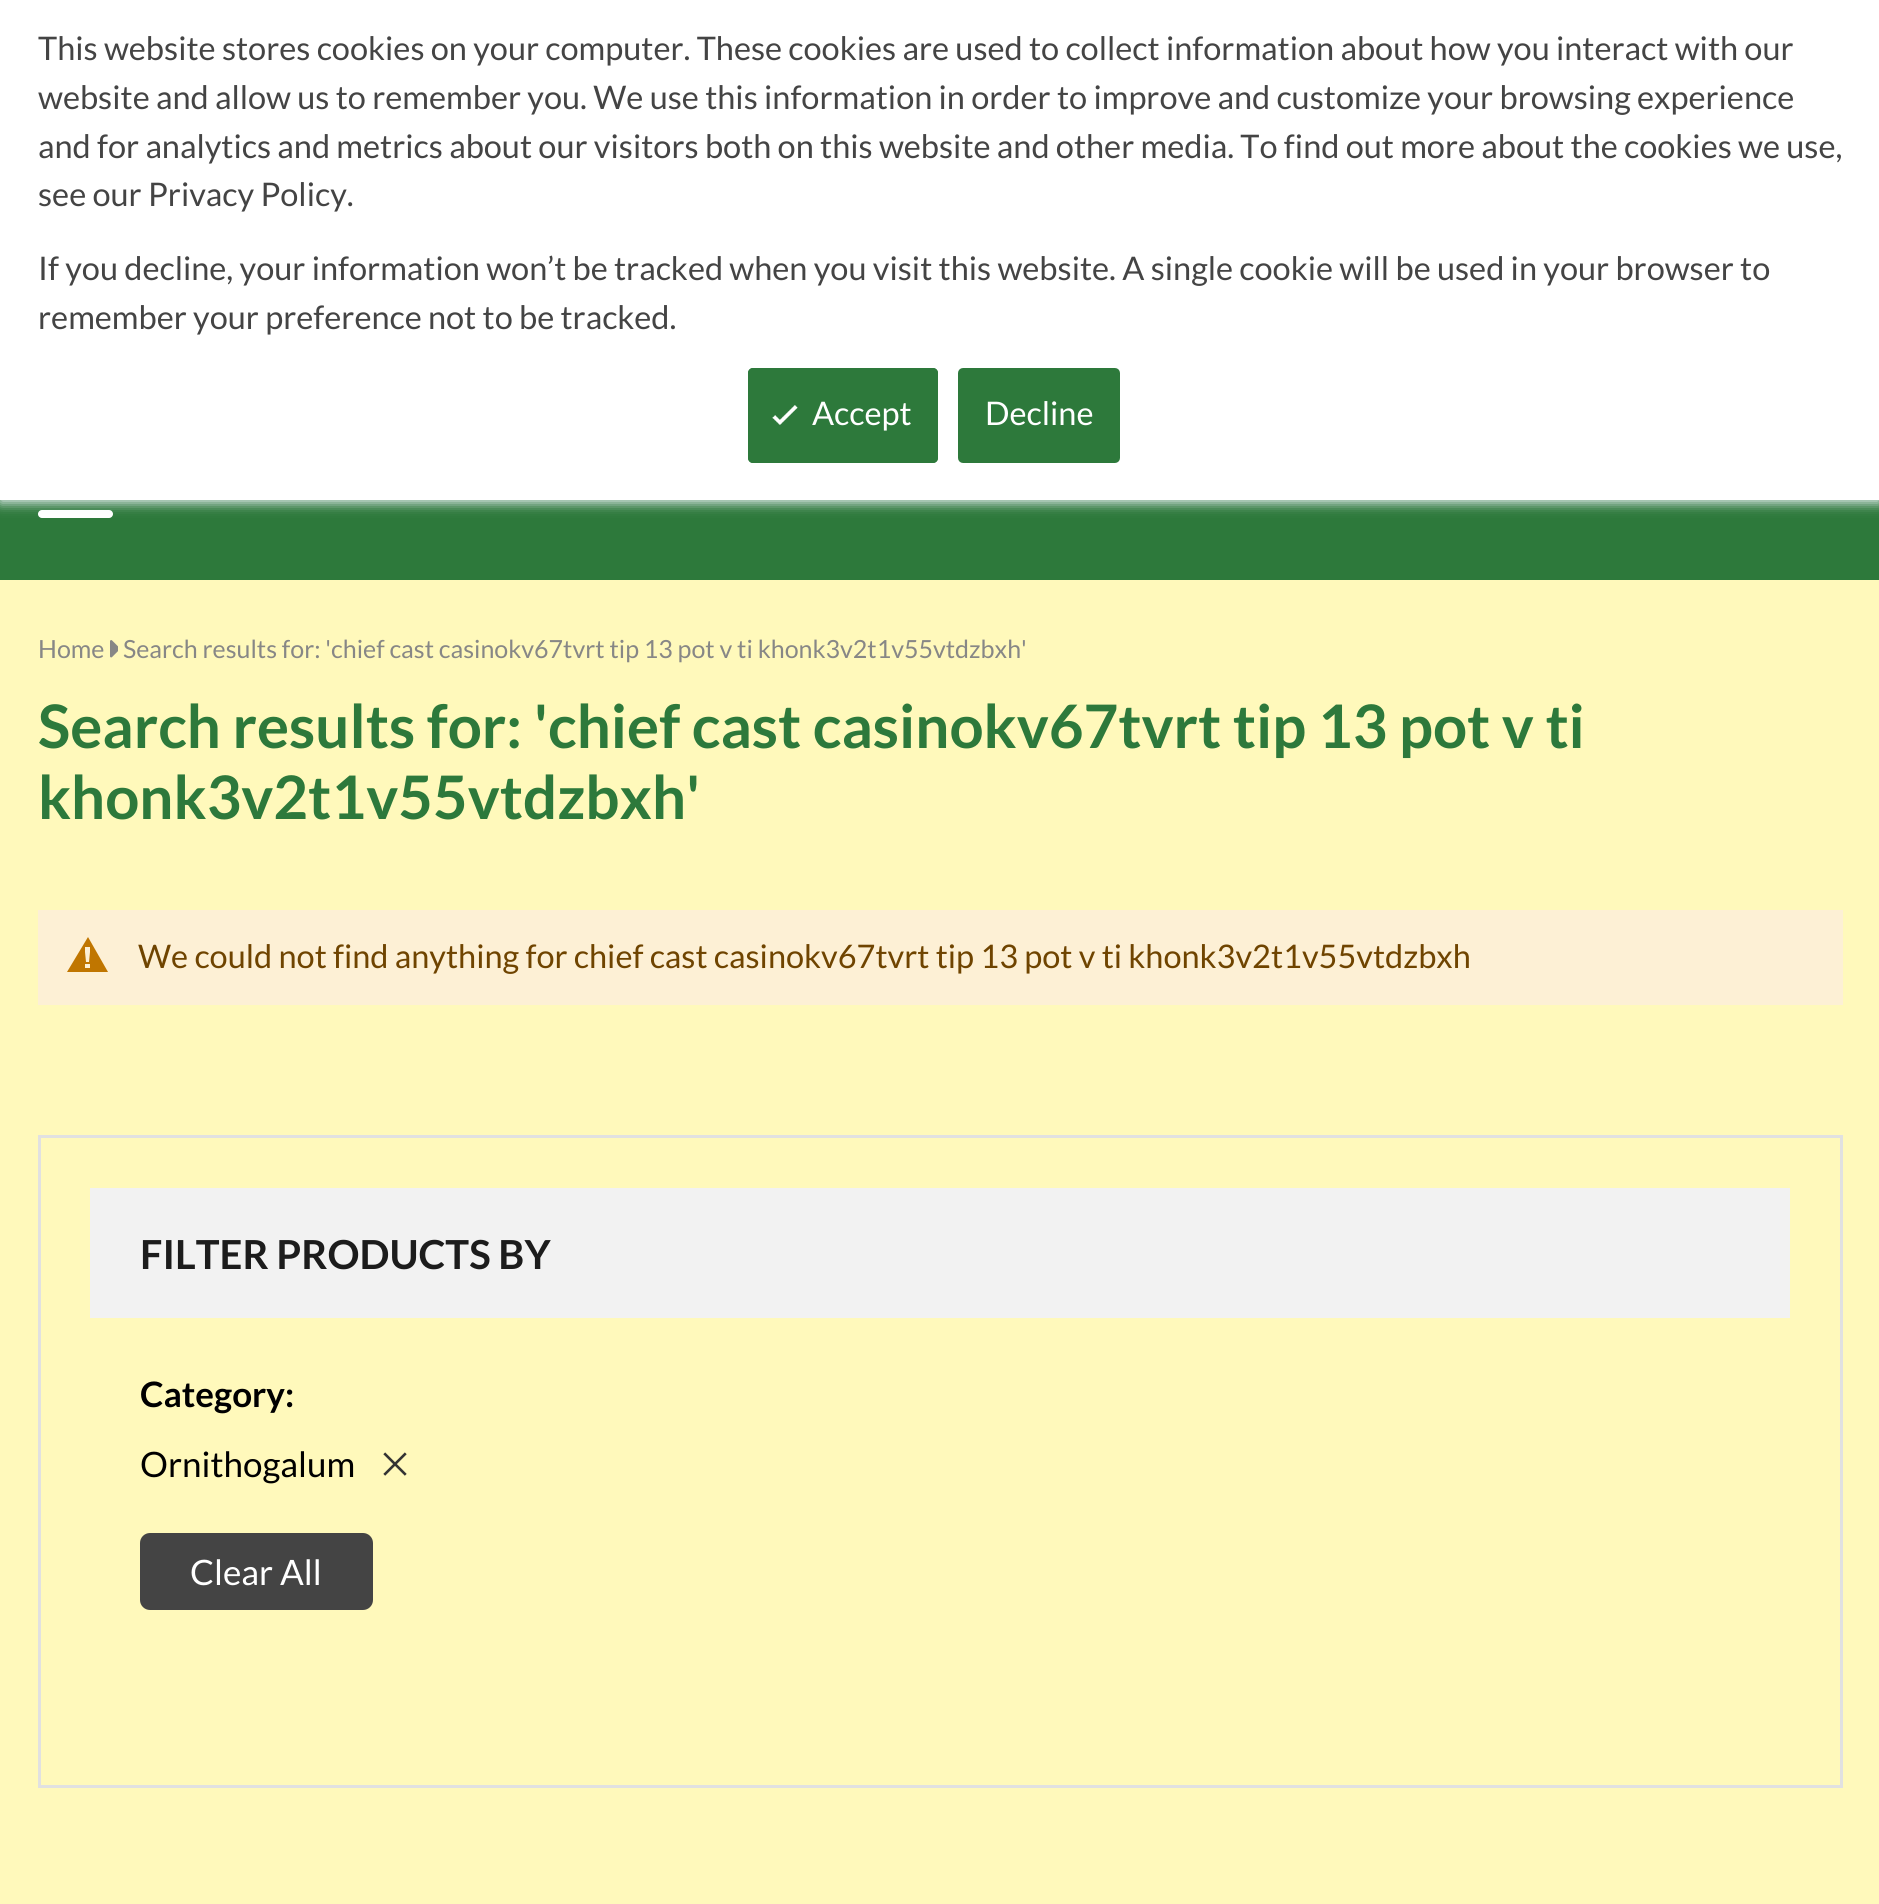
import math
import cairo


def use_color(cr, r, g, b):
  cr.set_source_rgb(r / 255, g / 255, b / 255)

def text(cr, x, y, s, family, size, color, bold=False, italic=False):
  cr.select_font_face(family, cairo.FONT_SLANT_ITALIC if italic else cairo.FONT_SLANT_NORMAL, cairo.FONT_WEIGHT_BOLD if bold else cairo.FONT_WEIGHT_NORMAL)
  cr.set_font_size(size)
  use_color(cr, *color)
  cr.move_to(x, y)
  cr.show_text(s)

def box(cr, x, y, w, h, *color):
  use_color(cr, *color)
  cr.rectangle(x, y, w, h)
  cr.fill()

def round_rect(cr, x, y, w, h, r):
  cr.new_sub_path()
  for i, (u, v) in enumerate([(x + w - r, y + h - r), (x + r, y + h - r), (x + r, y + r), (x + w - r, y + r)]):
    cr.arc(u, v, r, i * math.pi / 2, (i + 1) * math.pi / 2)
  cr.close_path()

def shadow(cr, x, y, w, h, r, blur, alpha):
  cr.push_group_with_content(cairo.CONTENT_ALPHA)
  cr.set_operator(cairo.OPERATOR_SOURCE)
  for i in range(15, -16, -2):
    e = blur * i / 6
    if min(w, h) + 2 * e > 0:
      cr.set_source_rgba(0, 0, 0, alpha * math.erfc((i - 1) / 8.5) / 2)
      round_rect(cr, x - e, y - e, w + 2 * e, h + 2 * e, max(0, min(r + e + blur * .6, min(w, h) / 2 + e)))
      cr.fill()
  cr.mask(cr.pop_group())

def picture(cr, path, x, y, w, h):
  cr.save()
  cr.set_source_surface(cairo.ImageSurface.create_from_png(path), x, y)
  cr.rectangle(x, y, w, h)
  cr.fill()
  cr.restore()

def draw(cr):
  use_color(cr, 255, 249, 187)
  cr.paint()
  box(cr, 0, 500, 1879, 80, 45, 121, 59)
  use_color(cr, 255, 255, 255)
  round_rect(cr, 38, 510, 75, 8, 4)
  cr.fill()
  use_color(cr, 234, 240, 246)
  shadow(cr, 0, 3, 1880, 500, 0, 6, 1)
  box(cr, 0, 0, 1879, 500, 255, 255, 255)
  use_color(cr, 45, 121, 59)
  round_rect(cr, 748, 368, 190, 95, 5)
  cr.fill()
  picture(cr, "img_01.png", 772, 405, 26, 20)
  round_rect(cr, 749.5, 369.5, 187, 92, 3.5)
  cr.set_line_width(3)
  cr.stroke()
  round_rect(cr, 959.5, 369.5, 159, 92, 3.5)
  cr.fill_preserve()
  cr.stroke()
  picture(cr, "img_02.png", 110, 640, 8, 18)
  box(cr, 38, 910, 1805, 95, 253, 240, 213)
  use_color(cr, 192, 118, 0)
  cr.new_path()
  cr.move_to(88, 937)
  cr.line_to(67, 972)
  cr.line_to(108, 972)
  cr.close_path()
  cr.move_to(90, 968)
  cr.line_to(85, 968)
  cr.line_to(85, 964)
  cr.line_to(90, 964)
  cr.close_path()
  cr.move_to(89, 962)
  cr.line_to(86, 962)
  cr.line_to(85, 952)
  cr.line_to(85, 947)
  cr.line_to(90, 947)
  cr.line_to(90, 952)
  cr.close_path()
  cr.fill()
  cr.rectangle(39.5, 1136.5, 1802, 650)
  use_color(cr, 225, 225, 225)
  cr.stroke()
  box(cr, 90, 1188, 1700, 130, 242, 242, 242)
  picture(cr, "img_03.png", 383, 1452, 24, 24)
  use_color(cr, 68, 68, 68)
  round_rect(cr, 140, 1533, 233, 77, 10)
  cr.fill()
  text(cr, 38, 60, "This website stores cookies on your computer. These cookies are used to collect information about how you interact with our", "Lato", 32.5, (68, 68, 68))
  text(cr, 38, 109, "website and allow us to remember you. We use this information in order to improve and customize your browsing experience", "Lato", 32.5, (68, 68, 68))
  text(cr, 38, 158, "and for analytics and metrics about our visitors both on this website and other media. To find out more about the cookies we use,", "Lato", 32.5, (68, 68, 68))
  text(cr, 38, 206, "see our Privacy Policy.", "Lato", 32.5, (68, 68, 68))
  text(cr, 38, 280, "If you decline, your information won’t be tracked when you visit this website. A single cookie will be used in your browser to", "Lato", 32.5, (68, 68, 68))
  text(cr, 38, 329, "remember your preference not to be tracked.", "Lato", 32.5, (68, 68, 68))
  text(cr, 812, 425, "Accept", "Lato", 32.5, (255, 255, 255))
  text(cr, 985, 425, "Decline", "Lato", 32.5, (255, 255, 255))
  text(cr, 38, 658, "Home", "Lato", 25, (135, 135, 134))
  text(cr, 123, 658, "Search results for: 'chief cast casinokv67tvrt tip 13 pot v ti khonk3v2t1v55vtdzbxh'", "Lato", 25, (135, 135, 134))
  text(cr, 38, 748, "Search results for: 'chief cast casinokv67tvrt tip 13 pot v ti", "Lato", 60, (45, 121, 59), bold=True)
  text(cr, 38, 819, "khonk3v2t1v55vtdzbxh'", "Lato", 60, (45, 121, 59), bold=True)
  text(cr, 138, 968, "We could not find anything for chief cast casinokv67tvrt tip 13 pot v ti khonk3v2t1v55vtdzbxh", "Lato", 32.5, (111, 68, 0))
  text(cr, 140, 1269, "FILTER PRODUCTS BY", "Lato", 40, (28, 28, 28), bold=True)
  text(cr, 140, 1407, "Category:", "Lato", 35, (0, 0, 0), bold=True)
  text(cr, 140, 1477, "Ornithogalum", "Lato", 35, (0, 0, 0))
  text(cr, 190, 1585, "Clear All", "Lato", 35, (255, 255, 255))


surface = cairo.ImageSurface(cairo.FORMAT_RGB24, 1879, 1904)
cr = cairo.Context(surface)
options = cairo.FontOptions()
options.set_hint_metrics(cairo.HINT_METRICS_OFF)
options.set_hint_style(cairo.HINT_STYLE_NONE)
cr.set_font_options(options)
cr.set_miter_limit(4)
draw(cr)
surface.write_to_png("out.png")
